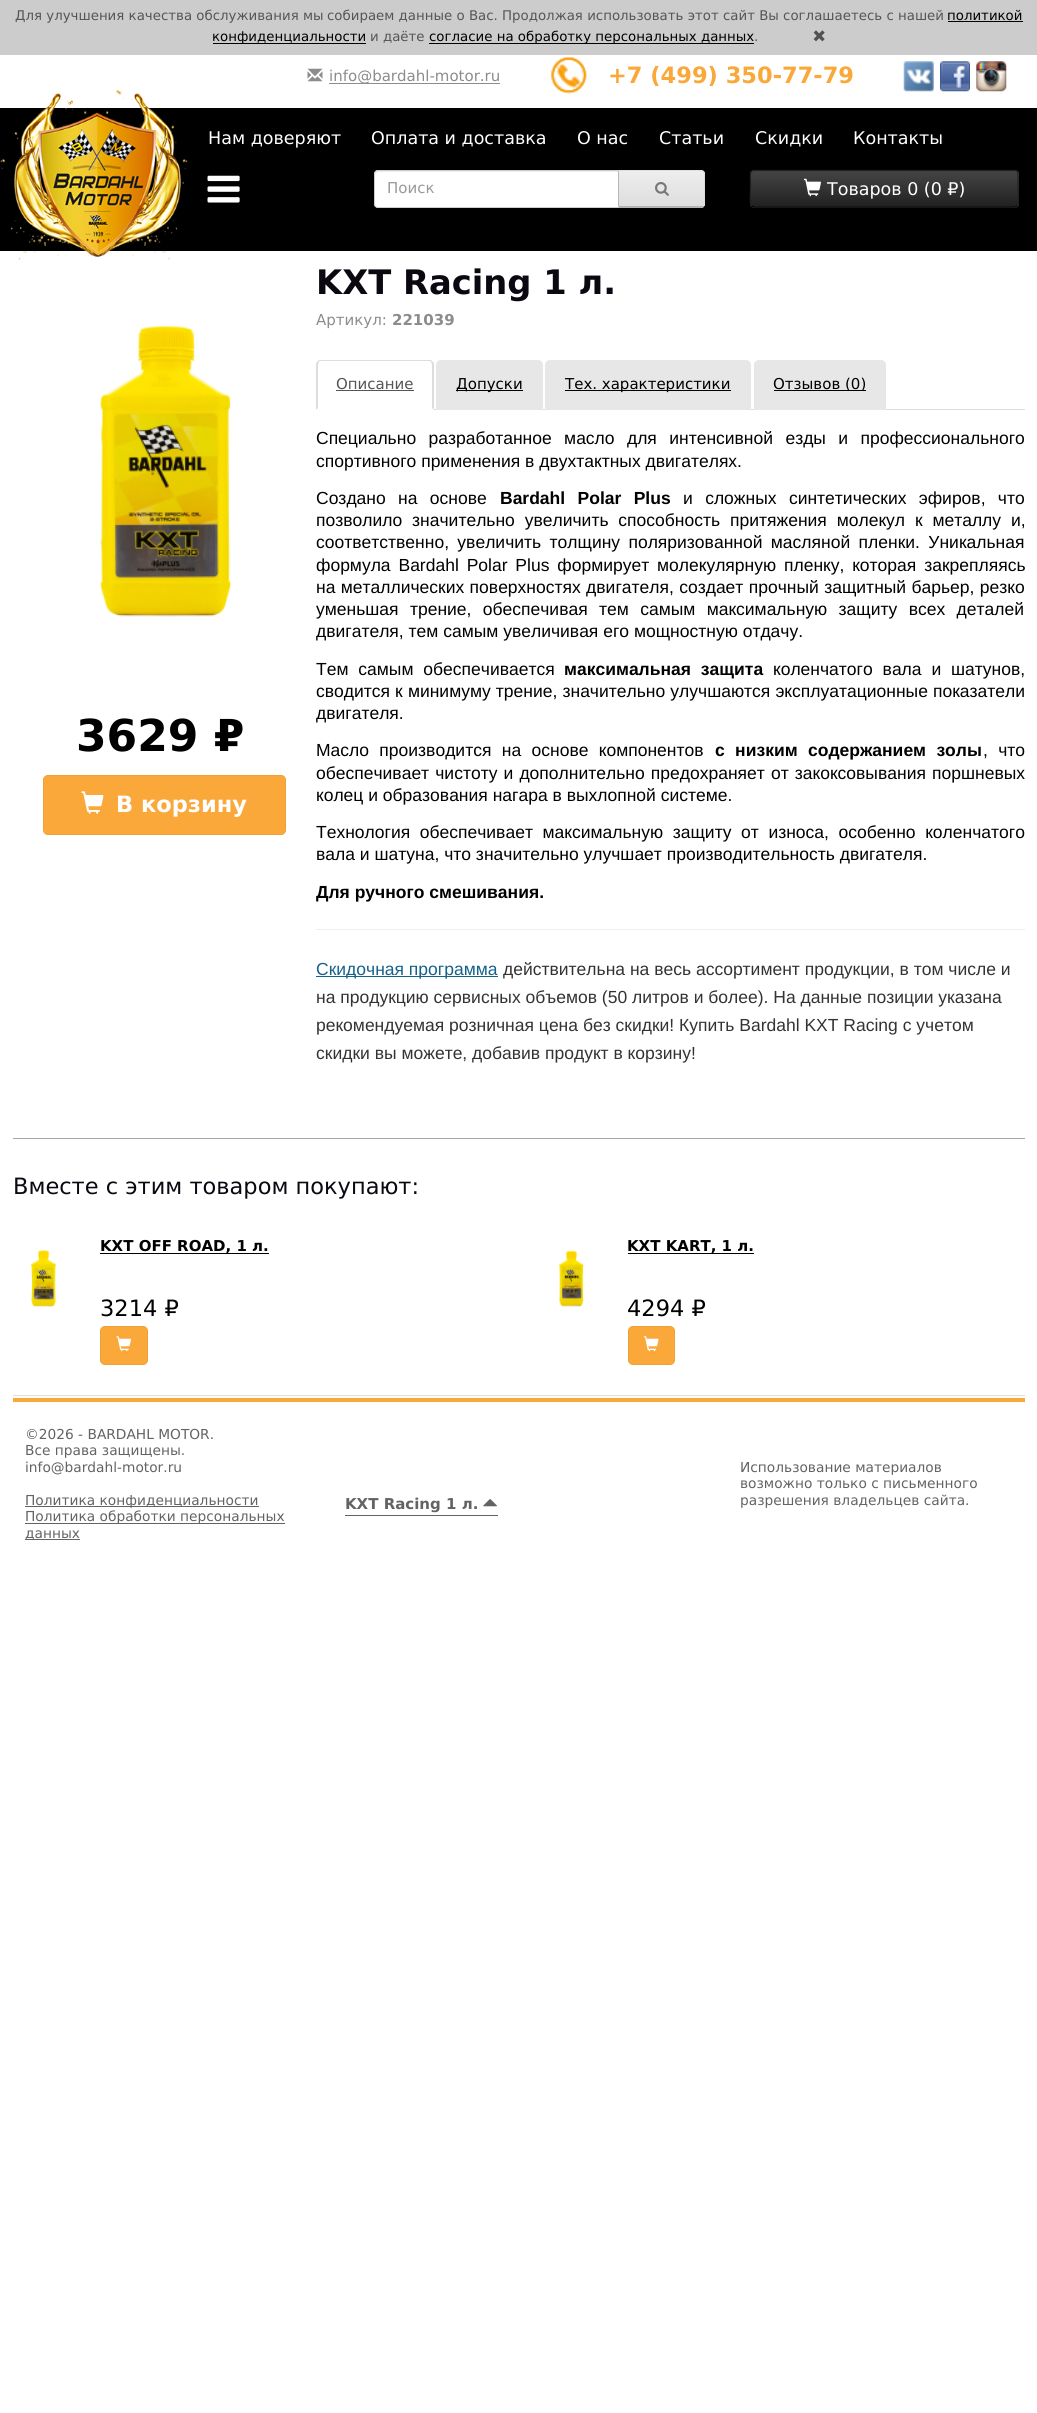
import math
import cairo


def use_color(cr, r, g, b):
  cr.set_source_rgb(r / 255, g / 255, b / 255)

def text(cr, x, y, s, family, size, color, bold=False, italic=False):
  cr.select_font_face(family, cairo.FONT_SLANT_ITALIC if italic else cairo.FONT_SLANT_NORMAL, cairo.FONT_WEIGHT_BOLD if bold else cairo.FONT_WEIGHT_NORMAL)
  cr.set_font_size(size)
  use_color(cr, *color)
  cr.move_to(x, y)
  cr.show_text(s)

def spaced_text(cr, x, y, s, letter, word):
  cr.move_to(x, y)
  for ch in s:
    cr.show_text(ch)
    cr.rel_move_to(letter + word * (ch == ' '), 0)

def box(cr, x, y, w, h, *color):
  use_color(cr, *color)
  cr.rectangle(x, y, w, h)
  cr.fill()

def round_rect(cr, x, y, w, h, r):
  cr.new_sub_path()
  for i, (u, v) in enumerate([(x + w - r, y + h - r), (x + r, y + h - r), (x + r, y + r), (x + w - r, y + r)]):
    cr.arc(u, v, r, i * math.pi / 2, (i + 1) * math.pi / 2)
  cr.close_path()

def picture(cr, path, x, y, w, h):
  cr.save()
  cr.set_source_surface(cairo.ImageSurface.create_from_png(path), x, y)
  cr.rectangle(x, y, w, h)
  cr.fill()
  cr.restore()

def draw(cr):
  use_color(cr, 255, 255, 255)
  cr.paint()
  box(cr, 0, 0, 1037, 55, 204, 204, 204)
  box(cr, 948, 21, 75, 1, 0, 0, 0)
  box(cr, 213, 43, 153, 1, 0, 0, 0)
  box(cr, 429, 43, 325, 1, 0, 0, 0)
  picture(cr, "img_01.png", 813, 30, 12, 12)
  picture(cr, "img_02.png", 307, 68, 16, 14)
  box(cr, 329, 83, 171, 1, 140, 140, 140)
  picture(cr, "img_03.png", 551, 57, 36, 37)
  picture(cr, "img_04.png", 903, 61, 31, 31)
  picture(cr, "img_05.png", 940, 61, 30, 31)
  picture(cr, "img_06.png", 976, 61, 31, 31)
  box(cr, 0, 108, 1037, 143, 0, 0, 0)
  picture(cr, "img_07.png", 0, 90, 188, 170)
  picture(cr, "img_08.png", 207, 175, 33, 28)
  use_color(cr, 255, 255, 255)
  cr.new_path()
  cr.move_to(378, 170)
  cr.line_to(619, 170)
  cr.line_to(619, 208)
  cr.line_to(378, 208)
  cr.curve_to(376, 208, 374, 206, 374, 204)
  cr.line_to(374, 174)
  cr.curve_to(374, 172, 376, 170, 378, 170)
  cr.close_path()
  cr.fill()
  use_color(cr, 236, 236, 236)
  cr.new_path()
  cr.move_to(378, 172)
  cr.line_to(618, 172)
  cr.line_to(618, 171)
  cr.line_to(377, 171)
  cr.curve_to(375, 172, 375, 174, 375, 175)
  cr.curve_to(375, 174, 376, 172, 378, 172)
  cr.close_path()
  cr.fill()
  cr.new_path()
  cr.move_to(378, 170.5)
  cr.line_to(618.5, 170.5)
  cr.line_to(618.5, 207.5)
  cr.line_to(378, 207.5)
  cr.curve_to(376, 207.5, 374.5, 206, 374.5, 204)
  cr.line_to(374.5, 174)
  cr.curve_to(374.5, 172, 376, 170.5, 378, 170.5)
  cr.close_path()
  use_color(cr, 204, 204, 204)
  cr.set_line_width(1)
  cr.stroke()
  use_color(cr, 231, 231, 231)
  cr.new_path()
  cr.move_to(618, 170)
  cr.line_to(701, 170)
  cr.curve_to(703, 170, 705, 172, 705, 174)
  cr.line_to(705, 204)
  cr.curve_to(705, 206, 703, 208, 701, 208)
  cr.line_to(618, 208)
  cr.close_path()
  cr.fill()
  cr.save()
  cr.new_path()
  cr.move_to(618, 170)
  cr.line_to(701, 170)
  cr.curve_to(703, 170, 705, 172, 705, 174)
  cr.line_to(705, 204)
  cr.curve_to(705, 206, 703, 208, 701, 208)
  cr.line_to(618, 208)
  cr.close_path()
  cr.clip()
  gradient = cairo.LinearGradient(661, 171, 661, 206)
  gradient.add_color_stop_rgba(0, 0.933, 0.933, 0.933, 1)
  gradient.add_color_stop_rgba(1, 0.867, 0.867, 0.867, 1)
  cr.set_source(gradient)
  cr.rectangle(618, 171, 87, 35)
  cr.fill()
  cr.restore()
  use_color(cr, 221, 221, 221)
  cr.new_path()
  cr.move_to(618, 170)
  cr.line_to(619, 172)
  cr.line_to(619, 171)
  cr.line_to(701, 171)
  cr.line_to(703, 172)
  cr.line_to(704, 171)
  cr.line_to(701, 170)
  cr.close_path()
  cr.fill()
  cr.new_path()
  cr.move_to(705, 204)
  cr.line_to(705, 174)
  cr.curve_to(705, 173, 704.5, 172, 704, 171)
  cr.line_to(703, 172)
  cr.curve_to(705, 173.5, 704, 178, 704, 179)
  cr.line_to(704, 204)
  cr.line_to(703, 205.5)
  cr.line_to(704, 206.5)
  cr.curve_to(704.5, 206, 705, 205, 705, 204)
  cr.close_path()
  cr.fill()
  use_color(cr, 179, 179, 179)
  cr.new_path()
  cr.move_to(618, 208)
  cr.line_to(619, 206)
  cr.line_to(701, 206)
  cr.line_to(703, 206)
  cr.line_to(704, 206)
  cr.line_to(703, 208)
  cr.close_path()
  cr.fill()
  use_color(cr, 183, 183, 183)
  cr.new_path()
  cr.move_to(618, 170.5)
  cr.line_to(618, 207)
  cr.line_to(619, 206)
  cr.line_to(619, 171.5)
  cr.close_path()
  cr.fill()
  picture(cr, "img_09.png", 655, 182, 14, 14)
  use_color(cr, 54, 54, 54)
  round_rect(cr, 750, 170, 269, 38, 4)
  cr.fill()
  cr.save()
  round_rect(cr, 750, 170, 269, 38, 4)
  cr.clip()
  gradient = cairo.LinearGradient(884, 171, 884, 206)
  gradient.add_color_stop_rgba(0, 0.267, 0.267, 0.267, 1)
  gradient.add_color_stop_rgba(1, 0.133, 0.133, 0.133, 1)
  cr.set_source(gradient)
  cr.rectangle(750, 171, 269, 35)
  cr.fill()
  cr.restore()
  cr.new_path()
  cr.move_to(1017, 206)
  cr.line_to(1015, 207)
  cr.line_to(754, 207)
  cr.line_to(751.5, 206)
  use_color(cr, 0, 0, 0)
  cr.set_line_width(1.2)
  cr.stroke()
  cr.new_path()
  cr.move_to(751.5, 206)
  cr.curve_to(749.5, 204, 750.5, 192, 750.5, 189)
  cr.line_to(750.5, 179)
  cr.curve_to(750.5, 176.5, 749.5, 170.5, 754, 170.5)
  cr.line_to(1015, 170.5)
  cr.curve_to(1019, 170.5, 1018, 176.5, 1018, 179)
  cr.line_to(1018, 189)
  cr.curve_to(1018, 192, 1019.5, 204, 1017, 206)
  use_color(cr, 34, 34, 34)
  cr.stroke()
  picture(cr, "img_10.png", 803, 178, 18, 19)
  picture(cr, "img_11.png", 99, 326, 133, 291)
  use_color(cr, 250, 168, 58)
  round_rect(cr, 43.5, 775.5, 242, 59, 4.5)
  cr.fill_preserve()
  use_color(cr, 238, 162, 54)
  cr.set_line_width(1)
  cr.stroke()
  picture(cr, "img_12.png", 81, 791, 23, 23)
  box(cr, 434, 409, 591, 1, 221, 221, 221)
  cr.new_path()
  cr.move_to(321, 360)
  cr.curve_to(320, 360, 318, 360, 318, 361)
  cr.line_to(319, 362)
  cr.line_to(320, 361)
  cr.line_to(429, 361)
  cr.curve_to(430, 361, 431, 362, 431, 362)
  cr.line_to(432, 361)
  cr.curve_to(432, 360, 430, 360, 429, 360)
  cr.close_path()
  cr.fill()
  cr.new_path()
  cr.move_to(434, 363)
  cr.line_to(434, 410)
  cr.line_to(432, 408)
  cr.line_to(432, 365)
  cr.line_to(431, 362)
  cr.line_to(432, 361)
  cr.close_path()
  cr.fill()
  cr.new_path()
  cr.move_to(316, 410)
  cr.line_to(316, 363)
  cr.line_to(318, 361)
  cr.line_to(319, 362)
  cr.line_to(318, 365)
  cr.line_to(318, 408)
  cr.close_path()
  cr.fill()
  box(cr, 336, 390, 78, 1, 85, 85, 85)
  use_color(cr, 231, 231, 231)
  cr.new_path()
  cr.move_to(441, 360)
  cr.line_to(538, 360)
  cr.curve_to(541, 360, 543, 362, 543, 365)
  cr.line_to(543, 410)
  cr.line_to(436, 410)
  cr.line_to(436, 365)
  cr.curve_to(436, 362, 438, 360, 441, 360)
  cr.close_path()
  cr.fill()
  box(cr, 456, 390, 67, 1, 0, 0, 0)
  use_color(cr, 231, 231, 231)
  cr.new_path()
  cr.move_to(550, 360)
  cr.line_to(746, 360)
  cr.curve_to(749, 360, 751, 362, 751, 365)
  cr.line_to(751, 410)
  cr.line_to(545, 410)
  cr.line_to(545, 365)
  cr.curve_to(545, 362, 547, 360, 550, 360)
  cr.close_path()
  cr.fill()
  box(cr, 565, 390, 166, 1, 0, 0, 0)
  use_color(cr, 231, 231, 231)
  cr.new_path()
  cr.move_to(759, 360)
  cr.line_to(881, 360)
  cr.curve_to(884, 360, 886, 362, 886, 365)
  cr.line_to(886, 410)
  cr.line_to(754, 410)
  cr.line_to(754, 365)
  cr.curve_to(754, 362, 756, 360, 759, 360)
  cr.close_path()
  cr.fill()
  box(cr, 774, 390, 92, 1, 0, 0, 0)
  box(cr, 316, 929, 709, 1, 238, 238, 238)
  box(cr, 316, 976, 182, 1, 20, 98, 140)
  box(cr, 13, 1138, 1012, 1, 167, 166, 169)
  picture(cr, "img_13.png", 31, 1250, 26, 57)
  box(cr, 100, 1253, 169, 1, 0, 0, 0)
  use_color(cr, 250, 168, 58)
  round_rect(cr, 100.5, 1326.5, 47, 38, 4.5)
  cr.fill_preserve()
  use_color(cr, 238, 162, 54)
  cr.stroke()
  picture(cr, "img_14.png", 116, 1336, 15, 16)
  picture(cr, "img_15.png", 558, 1250, 26, 57)
  box(cr, 628, 1253, 126, 1, 0, 0, 0)
  use_color(cr, 250, 168, 58)
  round_rect(cr, 628.5, 1326.5, 46, 38, 4.5)
  cr.fill_preserve()
  use_color(cr, 238, 162, 54)
  cr.stroke()
  picture(cr, "img_16.png", 643, 1336, 16, 16)
  box(cr, 13, 1395, 1012, 1, 223, 223, 223)
  box(cr, 13, 1398, 1012, 4, 250, 168, 58)
  box(cr, 25, 1506, 234, 1, 99, 99, 99)
  box(cr, 25, 1523, 260, 1, 99, 99, 99)
  box(cr, 25, 1539, 55, 1, 99, 99, 99)
  box(cr, 345, 1515, 153, 1, 99, 99, 99)
  picture(cr, "img_17.png", 483, 1499, 14, 8)
  text(cr, 15, 20, "Для улучшения качества обслуживания мы", "DejaVu Sans", 13.35, (85, 85, 85))
  text(cr, 327, 20, "собираем данные о Вас. Продолжая использовать этот сайт Вы соглашаетесь с нашей", "DejaVu Sans", 13.35, (85, 85, 85))
  text(cr, 947, 20, "политикой", "DejaVu Sans", 13.35, (0, 0, 0))
  text(cr, 212, 41, "конфиденциальности", "DejaVu Sans", 13.35, (0, 0, 0))
  text(cr, 370, 41, "и даёте", "DejaVu Sans", 13.35, (85, 85, 85))
  text(cr, 429, 41, "согласие на обработку персональных данных", "DejaVu Sans", 13.35, (0, 0, 0))
  text(cr, 754, 41, ".", "DejaVu Sans", 13.35, (85, 85, 85))
  text(cr, 329, 81, "info@bardahl-motor.ru", "DejaVu Sans", 15, (140, 140, 140))
  text(cr, 608, 83, "+7 (499) 350-77-79", "DejaVu Sans", 22.5, (250, 168, 58), bold=True)
  text(cr, 208, 144, "Нам доверяют", "DejaVu Sans", 17.5, (255, 255, 255))
  text(cr, 371, 144, "Оплата и доставка", "DejaVu Sans", 17.5, (255, 255, 255))
  text(cr, 577, 144, "О нас", "DejaVu Sans", 17.5, (255, 255, 255))
  text(cr, 659, 144, "Статьи", "DejaVu Sans", 17.5, (255, 255, 255))
  text(cr, 755, 144, "Скидки", "DejaVu Sans", 17.5, (255, 255, 255))
  text(cr, 853, 144, "Контакты", "DejaVu Sans", 17.5, (255, 255, 255))
  text(cr, 387, 193, "Поиск", "DejaVu Sans", 15, (153, 153, 153))
  text(cr, 827, 195, "Товаров 0 (0 ₽)", "DejaVu Sans", 17.5, (255, 255, 255))
  text(cr, 76, 751, "3629 ₽", "DejaVu Sans", 44, (0, 0, 0), bold=True)
  text(cr, 116, 812, "В корзину", "DejaVu Sans", 22.5, (255, 255, 255), bold=True)
  text(cr, 316, 294, "KXT Racing 1 л.", "DejaVu Sans", 33.75, (11, 8, 17), bold=True)
  text(cr, 316, 325, "Артикул:", "DejaVu Sans", 15, (140, 140, 140))
  text(cr, 392, 325, "221039", "DejaVu Sans", 15, (140, 140, 140), bold=True)
  text(cr, 336, 389, "Описание", "DejaVu Sans", 15, (85, 85, 85))
  text(cr, 456, 389, "Допуски", "DejaVu Sans", 15, (0, 0, 0))
  text(cr, 565, 389, "Тех. характеристики", "DejaVu Sans", 15, (0, 0, 0))
  text(cr, 773, 389, "Отзывов (0)", "DejaVu Sans", 15, (0, 0, 0))
  cr.select_font_face("Liberation Sans")
  cr.set_font_size(17.5)
  spaced_text(cr, 316, 444, "Специально разработанное масло для интенсивной езды и профессионального", 0, 7.5)
  text(cr, 316, 467, "спортивного применения в двухтактных двигателях.", "Liberation Sans", 17.5, (0, 0, 0))
  spaced_text(cr, 316, 504, "Создано на основе", 0, 7.5)
  cr.select_font_face("Liberation Sans", cairo.FONT_SLANT_NORMAL, cairo.FONT_WEIGHT_BOLD)
  spaced_text(cr, 500, 504, "Bardahl Polar Plus", 0, 7.5)
  cr.select_font_face("Liberation Sans")
  spaced_text(cr, 683, 504, "и сложных синтетических эфиров, что", 0, 7.5)
  spaced_text(cr, 316, 526, "позволило значительно увеличить способность притяжения молекул к металлу и,", 0, 5)
  spaced_text(cr, 316, 548, "соответственно, увеличить толщину поляризованной масляной пленки. Уникальная", 0, 3.5)
  spaced_text(cr, 316, 571, "формула Bardahl Polar Plus формирует молекулярную пленку, которая закрепляясь", 0, 3)
  spaced_text(cr, 316, 593, "на металлических поверхностях двигателя, создает прочный защитный барьер, резко", 0, 0.5)
  spaced_text(cr, 316, 615, "уменьшая трение, обеспечивая тем самым максимальную защиту всех деталей", 0, 6.5)
  text(cr, 316, 637, "двигателя, тем самым увеличивая его мощностную отдачу.", "Liberation Sans", 17.5, (0, 0, 0))
  spaced_text(cr, 316, 675, "Тем самым обеспечивается", 0, 5)
  cr.select_font_face("Liberation Sans", cairo.FONT_SLANT_NORMAL, cairo.FONT_WEIGHT_BOLD)
  spaced_text(cr, 564, 675, "максимальная защита", 0, 5)
  cr.select_font_face("Liberation Sans")
  spaced_text(cr, 773, 675, "коленчатого вала и шатунов,", 0, 5)
  spaced_text(cr, 316, 697, "сводится к минимуму трение, значительно улучшаются эксплуатационные показатели", 0, 0.25)
  text(cr, 316, 719, "двигателя.", "Liberation Sans", 17.5, (0, 0, 0))
  spaced_text(cr, 316, 756, "Масло производится на основе компонентов", 0, 5.5)
  cr.select_font_face("Liberation Sans", cairo.FONT_SLANT_NORMAL, cairo.FONT_WEIGHT_BOLD)
  spaced_text(cr, 715, 756, "с низким содержанием золы", 0, 5.5)
  cr.select_font_face("Liberation Sans")
  spaced_text(cr, 983, 756, ", что", 0, 5.5)
  spaced_text(cr, 316, 779, "обеспечивает чистоту и дополнительно предохраняет от закоксовывания поршневых", 0, 1.25)
  text(cr, 316, 801, "колец и образования нагара в выхлопной системе.", "Liberation Sans", 17.5, (0, 0, 0))
  spaced_text(cr, 316, 838, "Технология обеспечивает максимальную защиту от износа, особенно коленчатого", 0, 4.75)
  text(cr, 316, 860, "вала и шатуна, что значительно улучшает производительность двигателя.", "Liberation Sans", 17.5, (0, 0, 0))
  text(cr, 316, 898, "Для ручного смешивания.", "Liberation Sans", 17.5, (0, 0, 0), bold=True)
  text(cr, 316, 975, "Скидочная программа", "Liberation Sans", 17.5, (20, 98, 140))
  text(cr, 503, 975, "действительна на весь ассортимент продукции, в том числе и", "Liberation Sans", 17.5, (51, 51, 51))
  text(cr, 316, 1003, "на продукцию сервисных объемов (50 литров и более). На данные позиции указана", "Liberation Sans", 17.5, (51, 51, 51))
  text(cr, 316, 1031, "рекомендуемая розничная цена без скидки! Купить Bardahl KXT Racing с учетом", "Liberation Sans", 17.5, (51, 51, 51))
  text(cr, 316, 1059, "скидки вы можете, добавив продукт в корзину!", "Liberation Sans", 17.5, (51, 51, 51))
  text(cr, 13, 1194, "Вместе с этим товаром покупают:", "DejaVu Sans", 22.5, (11, 8, 17))
  text(cr, 100, 1251, "KXT OFF ROAD, 1 л.", "DejaVu Sans", 15, (0, 0, 0), bold=True)
  text(cr, 100, 1316, "3214 ₽", "DejaVu Sans", 22.5, (0, 0, 0))
  text(cr, 627, 1251, "KXT KART, 1 л.", "DejaVu Sans", 15, (0, 0, 0), bold=True)
  text(cr, 627, 1316, "4294 ₽", "DejaVu Sans", 22.5, (0, 0, 0))
  text(cr, 25, 1439, "©2026 - BARDAHL MOTOR.", "DejaVu Sans", 13.75, (99, 99, 99))
  text(cr, 25, 1455, "Все права защищены.", "DejaVu Sans", 13.75, (99, 99, 99))
  text(cr, 25, 1472, "info@bardahl-motor.ru", "DejaVu Sans", 13.75, (99, 99, 99))
  text(cr, 25, 1505, "Политика конфиденциальности", "DejaVu Sans", 13.75, (99, 99, 99))
  text(cr, 25, 1521, "Политика обработки персональных", "DejaVu Sans", 13.75, (99, 99, 99))
  text(cr, 25, 1538, "данных", "DejaVu Sans", 13.75, (99, 99, 99))
  text(cr, 345, 1509, "KXT Racing 1 л.", "DejaVu Sans", 15, (99, 99, 99), bold=True)
  text(cr, 740, 1472, "Использование материалов", "DejaVu Sans", 13.75, (99, 99, 99))
  text(cr, 740, 1488, "возможно только с письменного", "DejaVu Sans", 13.75, (99, 99, 99))
  text(cr, 740, 1505, "разрешения владельцев сайта.", "DejaVu Sans", 13.75, (99, 99, 99))


surface = cairo.ImageSurface(cairo.FORMAT_RGB24, 1037, 2413)
cr = cairo.Context(surface)
options = cairo.FontOptions()
options.set_hint_metrics(cairo.HINT_METRICS_OFF)
options.set_hint_style(cairo.HINT_STYLE_NONE)
cr.set_font_options(options)
cr.set_miter_limit(4)
draw(cr)
surface.write_to_png("out.png")
